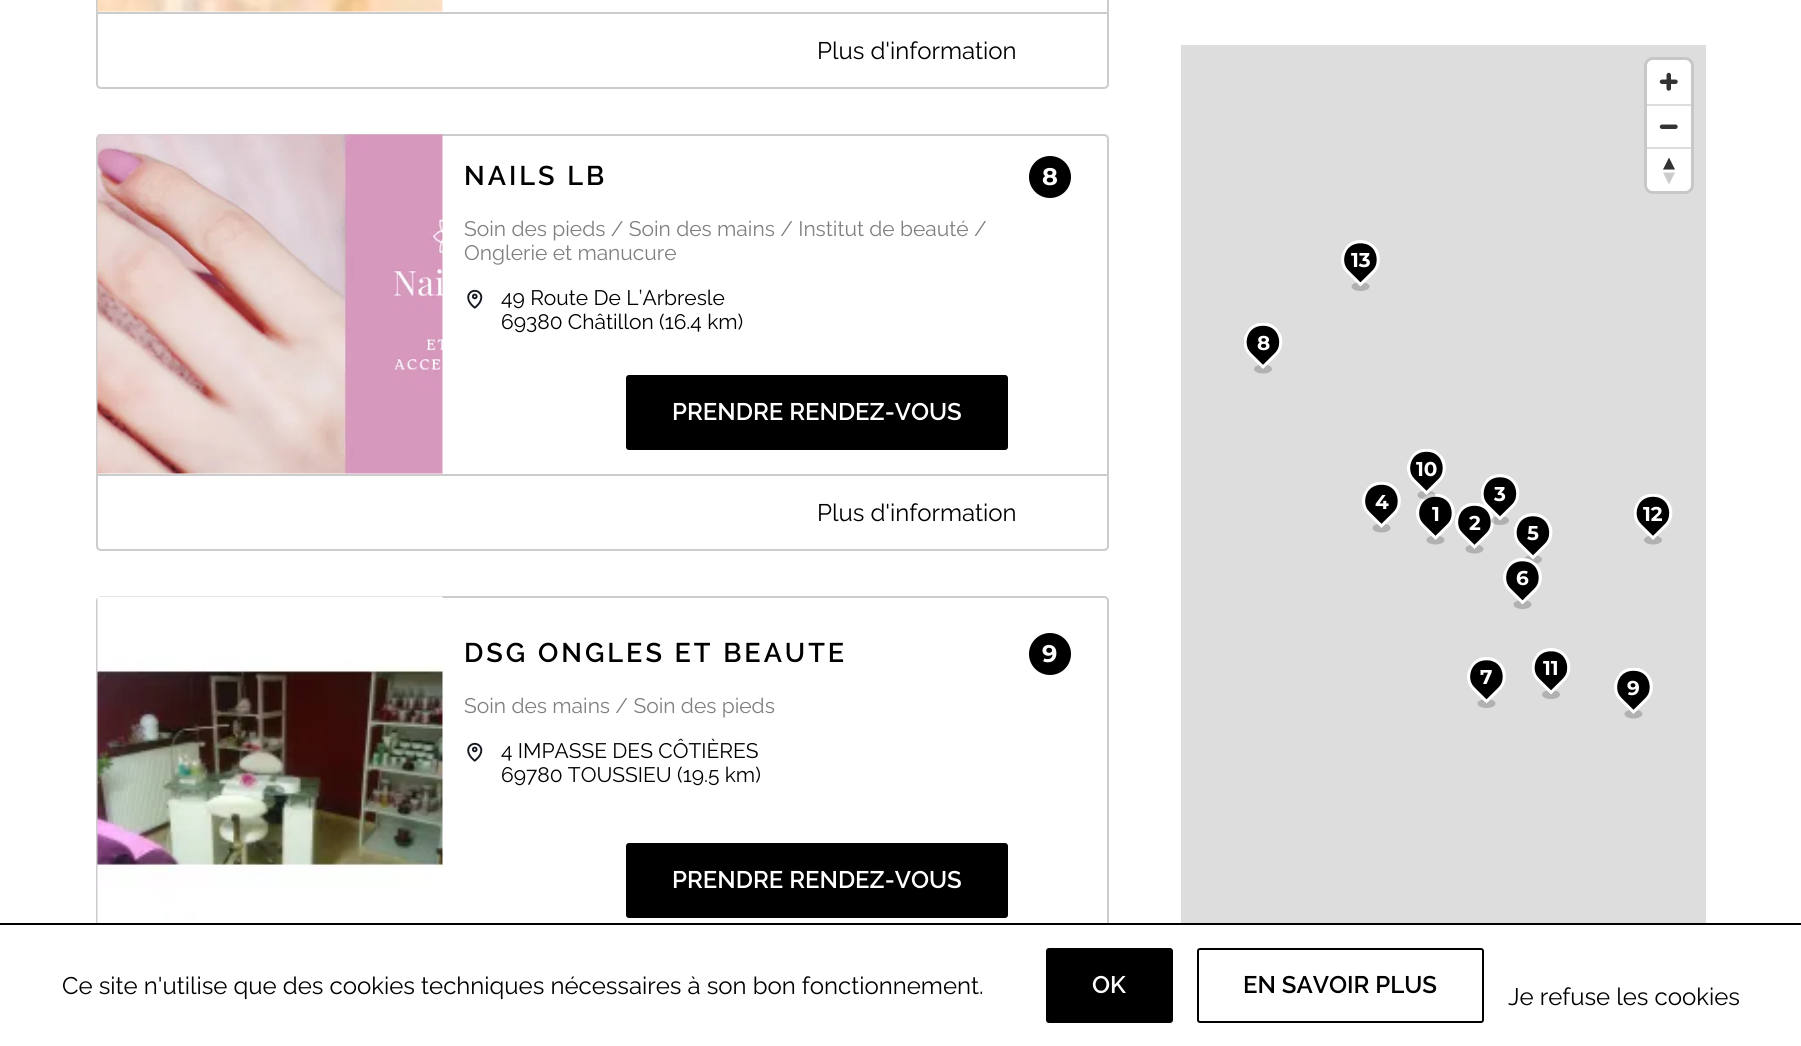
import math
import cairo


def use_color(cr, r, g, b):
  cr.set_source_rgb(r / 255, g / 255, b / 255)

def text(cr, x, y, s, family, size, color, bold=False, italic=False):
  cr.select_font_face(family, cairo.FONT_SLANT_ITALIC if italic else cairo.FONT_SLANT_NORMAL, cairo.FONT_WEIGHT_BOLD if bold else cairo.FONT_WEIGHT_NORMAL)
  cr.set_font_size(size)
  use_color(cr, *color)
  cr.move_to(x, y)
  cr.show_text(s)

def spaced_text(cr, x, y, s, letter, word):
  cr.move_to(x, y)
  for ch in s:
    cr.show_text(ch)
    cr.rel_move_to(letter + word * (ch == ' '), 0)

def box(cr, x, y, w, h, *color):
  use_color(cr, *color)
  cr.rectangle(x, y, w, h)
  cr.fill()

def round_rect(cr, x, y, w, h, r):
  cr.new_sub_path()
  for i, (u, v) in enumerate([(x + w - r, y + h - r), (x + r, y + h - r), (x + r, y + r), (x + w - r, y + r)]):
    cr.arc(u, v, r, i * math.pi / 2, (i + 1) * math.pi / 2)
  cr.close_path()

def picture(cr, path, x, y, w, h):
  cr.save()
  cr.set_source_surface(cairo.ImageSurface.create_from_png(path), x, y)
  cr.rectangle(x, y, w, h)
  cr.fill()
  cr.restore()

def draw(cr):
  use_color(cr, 255, 255, 255)
  cr.paint()
  round_rect(cr, 97, -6, 1011, 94, 4)
  use_color(cr, 204, 204, 204)
  cr.stroke()
  picture(cr, "img_01.png", 97, 0, 346, 12)
  box(cr, 98, 12, 1009, 2, 204, 204, 204)
  round_rect(cr, 97, 135, 1011, 415, 4)
  cr.stroke()
  picture(cr, "img_02.png", 97, 134, 346, 340)
  use_color(cr, 0, 0, 0)
  cr.arc(1050, 177, 21, 0, 2 * math.pi)
  cr.fill()
  picture(cr, "img_03.png", 467, 289, 16, 20)
  round_rect(cr, 627, 376, 380, 73, 2)
  cr.fill_preserve()
  cr.stroke()
  box(cr, 98, 474, 1009, 2, 204, 204, 204)
  round_rect(cr, 97, 597, 1011, 421, 4)
  cr.stroke()
  picture(cr, "img_04.png", 97, 596, 346, 327)
  use_color(cr, 0, 0, 0)
  cr.arc(1050, 654, 21, 0, 2 * math.pi)
  cr.fill()
  picture(cr, "img_03.png", 467, 742, 16, 20)
  round_rect(cr, 627, 844, 380, 73, 2)
  cr.fill_preserve()
  cr.stroke()
  box(cr, 1181, 45, 525, 878, 221, 221, 221)
  round_rect(cr, 1645.5, 58.5, 47, 134, 7.5)
  use_color(cr, 199, 199, 199)
  cr.set_line_width(3)
  cr.stroke()
  use_color(cr, 255, 255, 255)
  round_rect(cr, 1647, 60, 44, 131, 6)
  cr.fill()
  picture(cr, "img_05.png", 1659, 72, 19, 19)
  box(cr, 1647, 104, 44, 2, 221, 221, 221)
  picture(cr, "img_06.png", 1659, 124, 19, 5)
  box(cr, 1647, 147, 44, 2, 221, 221, 221)
  use_color(cr, 51, 51, 51)
  cr.new_path()
  cr.move_to(1663, 169.5)
  cr.line_to(1669, 157.5)
  cr.line_to(1675, 169.5)
  cr.close_path()
  cr.fill()
  use_color(cr, 204, 204, 204)
  cr.new_path()
  cr.move_to(1663, 172.5)
  cr.line_to(1669, 184.5)
  cr.line_to(1675, 172.5)
  cr.close_path()
  cr.fill()
  picture(cr, "img_07.png", 1341, 240, 39, 51)
  picture(cr, "img_08.png", 1244, 323, 39, 51)
  picture(cr, "img_10.png", 1416, 494, 39, 51)
  picture(cr, "img_09.png", 1407, 449, 39, 51)
  picture(cr, "img_10.png", 1362, 482, 39, 51)
  picture(cr, "img_10.png", 1455, 503, 39, 51)
  picture(cr, "img_11.png", 1481, 474, 39, 51)
  picture(cr, "img_08.png", 1634, 494, 39, 51)
  picture(cr, "img_12.png", 1514, 513, 39, 51)
  picture(cr, "img_13.png", 1503, 558, 39, 51)
  picture(cr, "img_12.png", 1532, 648, 39, 51)
  picture(cr, "img_07.png", 1467, 657, 39, 51)
  picture(cr, "img_10.png", 1614, 668, 39, 51)
  box(cr, 96, 925, 1013, 94, 255, 255, 255)
  box(cr, 0, 923, 1801, 2, 0, 0, 0)
  round_rect(cr, 1047, 949, 125, 73, 2)
  cr.fill_preserve()
  cr.set_line_width(2)
  cr.stroke()
  round_rect(cr, 1198, 949, 285, 73, 2)
  cr.stroke()
  text(cr, 817, 59, "Plus d'information", "Raleway", 24, (0, 0, 0))
  cr.select_font_face("Raleway SemiBold")
  cr.set_font_size(27)
  spaced_text(cr, 464, 185, "NAILS LB", 3, 0)
  text(cr, 1042, 185, "8", "Montserrat", 24, (255, 255, 255), bold=True)
  text(cr, 464, 236, "Soin des pieds / Soin des mains / Institut de beauté /", "Raleway", 21, (128, 128, 128))
  text(cr, 464, 260, "Onglerie et manucure", "Raleway", 21, (128, 128, 128))
  text(cr, 501, 305, "49 Route De L’Arbresle", "Raleway", 21, (0, 0, 0))
  text(cr, 501, 329, "69380 Châtillon (16.4 km)", "Raleway", 21, (0, 0, 0))
  text(cr, 672, 420, "PRENDRE RENDEZ-VOUS", "Raleway SemiBold", 24, (255, 255, 255))
  text(cr, 817, 521, "Plus d'information", "Raleway", 24, (0, 0, 0))
  cr.select_font_face("Raleway SemiBold")
  cr.set_font_size(27)
  spaced_text(cr, 464, 662, "DSG ONGLES ET BEAUTE", 3, 0)
  text(cr, 1042, 662, "9", "Montserrat", 24, (255, 255, 255), bold=True)
  text(cr, 464, 713, "Soin des mains / Soin des pieds", "Raleway", 21, (128, 128, 128))
  text(cr, 501, 758, "4 IMPASSE DES CÔTIÈRES", "Raleway", 21, (0, 0, 0))
  text(cr, 501, 782, "69780 TOUSSIEU (19.5 km)", "Raleway", 21, (0, 0, 0))
  text(cr, 672, 888, "PRENDRE RENDEZ-VOUS", "Raleway SemiBold", 24, (255, 255, 255))
  text(cr, 1351, 267, "13", "Montserrat", 20, (255, 255, 255), bold=True)
  text(cr, 1257, 350, "8", "Montserrat", 20, (255, 255, 255), bold=True)
  text(cr, 1416, 476, "10", "Montserrat", 20, (255, 255, 255), bold=True)
  text(cr, 1375, 509, "4", "Montserrat", 20, (255, 255, 255), bold=True)
  text(cr, 1494, 501, "3", "Montserrat", 20, (255, 255, 255), bold=True)
  text(cr, 1432, 521, "1", "Montserrat", 20, (255, 255, 255), bold=True)
  text(cr, 1643, 521, "12", "Montserrat", 20, (255, 255, 255), bold=True)
  text(cr, 1469, 530, "2", "Montserrat", 20, (255, 255, 255), bold=True)
  text(cr, 1527, 540, "5", "Montserrat", 20, (255, 255, 255), bold=True)
  text(cr, 1516, 585, "6", "Montserrat", 20, (255, 255, 255), bold=True)
  text(cr, 1543, 675, "11", "Montserrat", 20, (255, 255, 255), bold=True)
  text(cr, 1480, 684, "7", "Montserrat", 20, (255, 255, 255), bold=True)
  text(cr, 1627, 695, "9", "Montserrat", 20, (255, 255, 255), bold=True)
  text(cr, 62, 994, "Ce site n'utilise que des cookies techniques nécessaires à son bon fonctionnement.", "Raleway", 24, (0, 0, 0))
  text(cr, 1092, 993, "OK", "Raleway SemiBold", 24, (255, 255, 255))
  text(cr, 1243, 993, "EN SAVOIR PLUS", "Raleway SemiBold", 24, (0, 0, 0))
  text(cr, 1508, 1005, "Je refuse les cookies", "Raleway", 24, (0, 0, 0))


surface = cairo.ImageSurface(cairo.FORMAT_RGB24, 1801, 1046)
cr = cairo.Context(surface)
options = cairo.FontOptions()
options.set_hint_metrics(cairo.HINT_METRICS_OFF)
options.set_hint_style(cairo.HINT_STYLE_NONE)
cr.set_font_options(options)
cr.set_miter_limit(4)
draw(cr)
surface.write_to_png("out.png")
